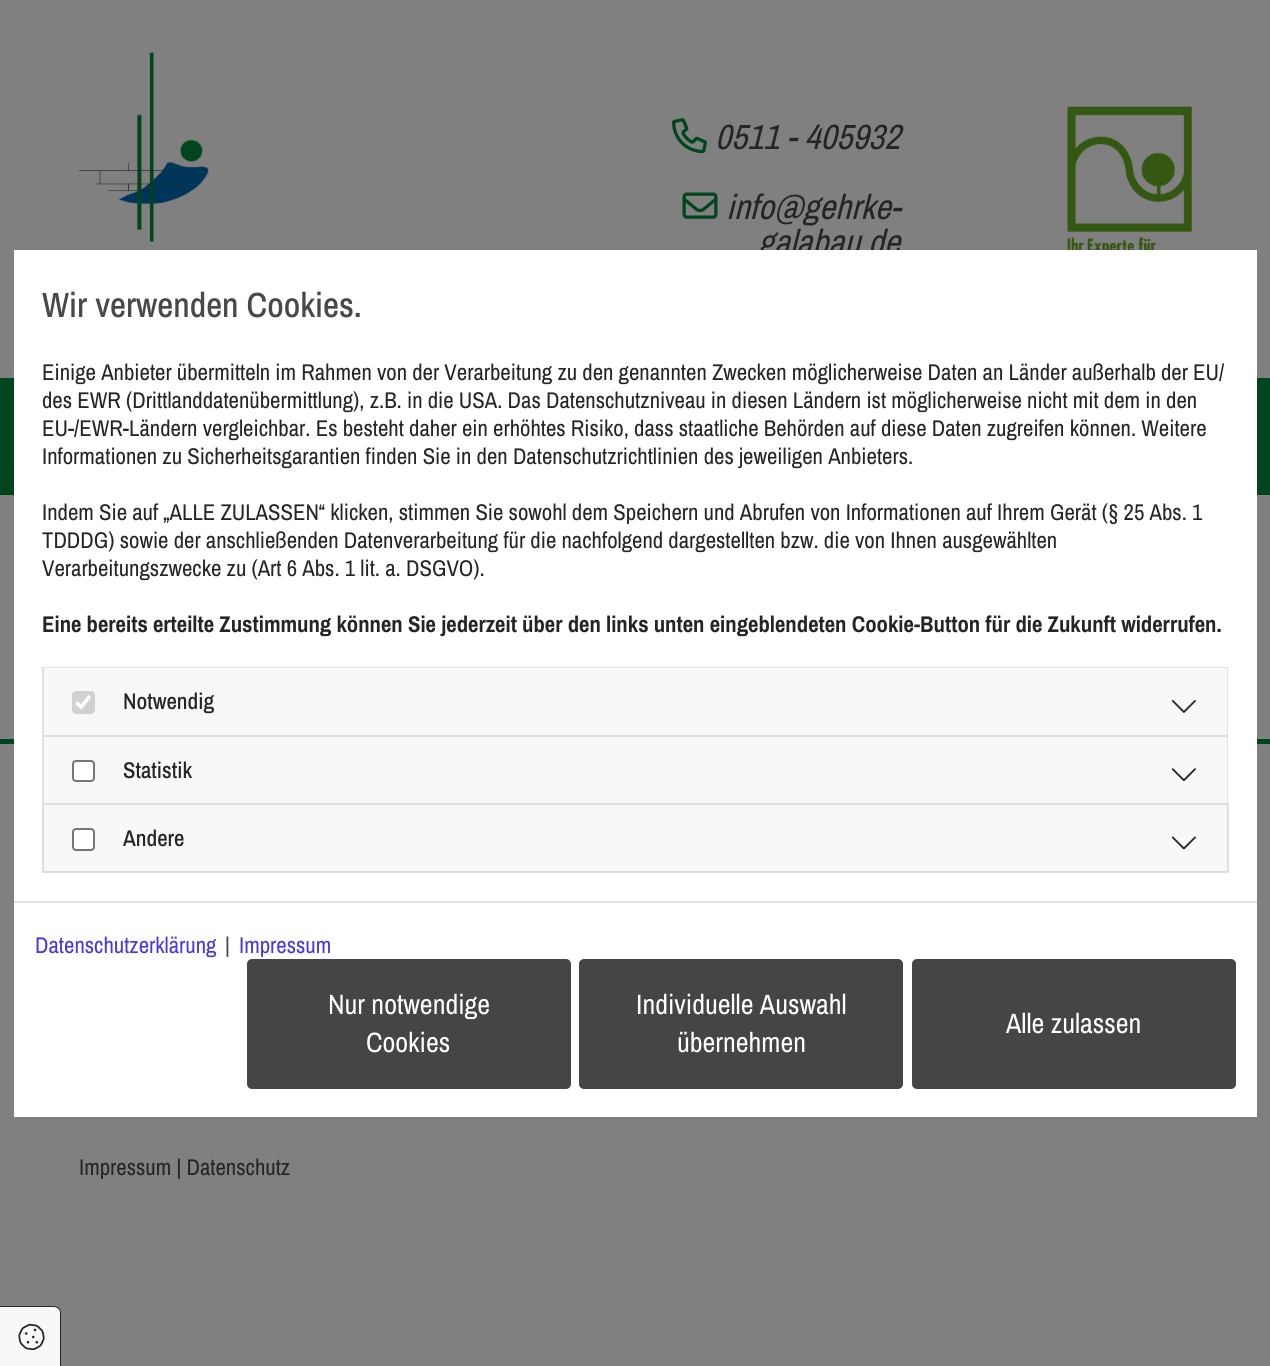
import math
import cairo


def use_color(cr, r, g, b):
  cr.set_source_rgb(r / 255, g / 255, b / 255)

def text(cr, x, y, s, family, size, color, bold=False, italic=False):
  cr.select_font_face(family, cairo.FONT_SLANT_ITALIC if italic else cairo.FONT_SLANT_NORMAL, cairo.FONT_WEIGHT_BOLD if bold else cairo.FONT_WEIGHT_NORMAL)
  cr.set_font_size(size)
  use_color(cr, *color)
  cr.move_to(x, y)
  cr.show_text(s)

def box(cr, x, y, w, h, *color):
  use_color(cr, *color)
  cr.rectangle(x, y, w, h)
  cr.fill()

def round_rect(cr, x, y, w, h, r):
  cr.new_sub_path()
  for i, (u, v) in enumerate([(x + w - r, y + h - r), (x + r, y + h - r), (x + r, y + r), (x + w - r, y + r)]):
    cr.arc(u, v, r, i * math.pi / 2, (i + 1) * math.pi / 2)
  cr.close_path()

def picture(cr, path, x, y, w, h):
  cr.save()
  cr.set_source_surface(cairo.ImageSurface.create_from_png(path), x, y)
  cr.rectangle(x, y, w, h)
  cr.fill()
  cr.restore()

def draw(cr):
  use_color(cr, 128, 128, 128)
  cr.paint()
  picture(cr, "img_01.png", 78, 52, 131, 190)
  picture(cr, "img_02.png", 672, 118, 35, 36)
  picture(cr, "img_03.png", 682, 192, 36, 27)
  picture(cr, "img_04.png", 1067, 106, 125, 144)
  box(cr, 0, 378, 1270, 117, 0, 69, 30)
  box(cr, 0, 739, 1270, 5, 0, 69, 30)
  use_color(cr, 248, 248, 248)
  cr.new_path()
  cr.move_to(0, 1306)
  cr.line_to(54, 1306)
  cr.curve_to(58, 1306, 61, 1309, 61, 1313)
  cr.line_to(61, 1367)
  cr.line_to(0, 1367)
  cr.close_path()
  cr.fill()
  use_color(cr, 37, 37, 37)
  cr.set_fill_rule(cairo.FILL_RULE_EVEN_ODD)
  cr.new_path()
  cr.move_to(0, 1306)
  cr.line_to(54, 1306)
  cr.curve_to(58, 1306, 61, 1309, 61, 1312)
  cr.line_to(61, 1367)
  cr.line_to(0, 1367)
  cr.close_path()
  cr.move_to(0, 1307)
  cr.line_to(54, 1307)
  cr.curve_to(57, 1307, 60, 1310, 60, 1312)
  cr.line_to(60, 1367)
  cr.line_to(0, 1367)
  cr.close_path()
  cr.fill()
  picture(cr, "img_08.png", 18, 1323, 27, 28)
  text(cr, 715, 149, "0511 - 405932", "Archivo Narrow", 35, (37, 37, 37), italic=True)
  text(cr, 726, 219, "info@gehrke-", "Archivo Narrow", 35, (37, 37, 37), italic=True)
  text(cr, 758, 254, "galabau.de", "Archivo Narrow", 35, (37, 37, 37), italic=True)
  text(cr, 79, 1175, "Impressum | Datenschutz", "Archivo Narrow", 22.75, (37, 37, 37))
  box(cr, 14, 250, 1243, 867, 255, 255, 255)
  text(cr, 42, 317, "Wir verwenden Cookies.", "Archivo Narrow Medium", 35, (73, 73, 73))
  text(cr, 42, 380, "Einige Anbieter übermitteln im Rahmen von der Verarbeitung zu den genannten Zwecken möglicherweise Daten an Länder außerhalb der EU/", "Archivo Narrow", 22.75, (37, 37, 37))
  text(cr, 42, 408, "des EWR (Drittlanddatenübermittlung), z.B. in die USA. Das Datenschutzniveau in diesen Ländern ist möglicherweise nicht mit dem in den", "Archivo Narrow", 22.75, (37, 37, 37))
  text(cr, 42, 436, "EU-/EWR-Ländern vergleichbar. Es besteht daher ein erhöhtes Risiko, dass staatliche Behörden auf diese Daten zugreifen können. Weitere", "Archivo Narrow", 22.75, (37, 37, 37))
  text(cr, 42, 464, "Informationen zu Sicherheitsgarantien finden Sie in den Datenschutzrichtlinien des jeweiligen Anbieters.", "Archivo Narrow", 22.75, (37, 37, 37))
  text(cr, 42, 520, "Indem Sie auf „ALLE ZULASSEN“ klicken, stimmen Sie sowohl dem Speichern und Abrufen von Informationen auf Ihrem Gerät (§ 25 Abs. 1", "Archivo Narrow", 22.75, (37, 37, 37))
  text(cr, 42, 548, "TDDDG) sowie der anschließenden Datenverarbeitung für die nachfolgend dargestellten bzw. die von Ihnen ausgewählten", "Archivo Narrow", 22.75, (37, 37, 37))
  text(cr, 42, 576, "Verarbeitungszwecke zu (Art 6 Abs. 1 lit. a. DSGVO).", "Archivo Narrow", 22.75, (37, 37, 37))
  text(cr, 42, 632, "Eine bereits erteilte Zustimmung können Sie jederzeit über den links unten eingeblendeten Cookie-Button für die Zukunft widerrufen.", "Archivo Narrow", 22.75, (37, 37, 37), bold=True)
  use_color(cr, 223, 223, 223)
  cr.set_fill_rule(cairo.FILL_RULE_WINDING)
  cr.new_path()
  cr.move_to(42, 667)
  cr.line_to(1228, 667)
  cr.line_to(1227, 668)
  cr.line_to(44, 668)
  cr.close_path()
  cr.fill()
  cr.set_source_rgba(0, 0, 0, 0.12)
  cr.new_path()
  cr.move_to(1228, 667)
  cr.line_to(1228, 735)
  cr.line_to(1227, 735)
  cr.line_to(1227, 668)
  cr.close_path()
  cr.fill()
  cr.new_path()
  cr.move_to(42, 735)
  cr.line_to(42, 667)
  cr.line_to(44, 668)
  cr.line_to(44, 735)
  cr.close_path()
  cr.fill()
  box(cr, 44, 669, 1183, 66, 248, 248, 248)
  use_color(cr, 209, 209, 209)
  round_rect(cr, 72, 691, 23, 23, 4)
  cr.fill()
  cr.new_path()
  cr.move_to(76.5, 702.5)
  cr.line_to(81, 707)
  cr.line_to(90, 696)
  use_color(cr, 255, 255, 255)
  cr.set_line_width(3.6)
  cr.stroke()
  text(cr, 123, 709, "Notwendig", "Archivo Narrow Medium", 22.75, (37, 37, 37))
  picture(cr, "img_05.png", 1171, 700, 25, 13)
  use_color(cr, 223, 223, 223)
  cr.new_path()
  cr.move_to(42, 735)
  cr.line_to(1228, 735)
  cr.line_to(1227, 737)
  cr.line_to(44, 737)
  cr.close_path()
  cr.fill()
  cr.set_source_rgba(0, 0, 0, 0.12)
  cr.new_path()
  cr.move_to(1228, 735)
  cr.line_to(1228, 803)
  cr.line_to(1227, 803)
  cr.line_to(1227, 737)
  cr.close_path()
  cr.fill()
  cr.new_path()
  cr.move_to(42, 803)
  cr.line_to(42, 735)
  cr.line_to(44, 737)
  cr.line_to(44, 803)
  cr.close_path()
  cr.fill()
  box(cr, 44, 737, 1183, 66, 248, 248, 248)
  use_color(cr, 255, 255, 255)
  round_rect(cr, 73, 761, 21, 20, 3)
  cr.fill_preserve()
  use_color(cr, 118, 118, 118)
  cr.set_line_width(2)
  cr.stroke()
  text(cr, 123, 778, "Statistik", "Archivo Narrow Medium", 22.75, (37, 37, 37))
  picture(cr, "img_06.png", 1171, 768, 25, 14)
  cr.rectangle(43, 804, 1185, 68)
  use_color(cr, 223, 223, 223)
  cr.stroke()
  cr.set_source_rgba(0, 0, 0, 0.03)
  cr.rectangle(44, 805, 1183, 67)
  cr.fill()
  use_color(cr, 255, 255, 255)
  round_rect(cr, 73, 829, 21, 21, 3)
  cr.fill_preserve()
  use_color(cr, 118, 118, 118)
  cr.stroke()
  text(cr, 123, 846, "Andere", "Archivo Narrow Medium", 22.75, (37, 37, 37))
  picture(cr, "img_07.png", 1171, 836, 25, 14)
  box(cr, 14, 901, 1243, 2, 222, 226, 230)
  text(cr, 35, 953, "Datenschutzerklärung", "Archivo Narrow", 22.75, (68, 58, 223))
  text(cr, 225, 953, "|", "Archivo Narrow", 22.75, (73, 73, 73))
  text(cr, 239, 953, "Impressum", "Archivo Narrow", 22.75, (68, 58, 223))
  use_color(cr, 69, 69, 69)
  round_rect(cr, 247, 959, 324, 130, 5)
  cr.fill()
  text(cr, 328, 1014, "Nur notwendige", "Archivo Narrow", 28, (255, 255, 255))
  text(cr, 366, 1052, "Cookies", "Archivo Narrow", 28, (255, 255, 255))
  use_color(cr, 69, 69, 69)
  round_rect(cr, 579, 959, 324, 130, 5)
  cr.fill()
  text(cr, 636, 1014, "Individuelle Auswahl", "Archivo Narrow", 28, (255, 255, 255))
  text(cr, 677, 1052, "übernehmen", "Archivo Narrow", 28, (255, 255, 255))
  use_color(cr, 69, 69, 69)
  round_rect(cr, 912, 959, 324, 130, 5)
  cr.fill()
  text(cr, 1006, 1033, "Alle zulassen", "Archivo Narrow", 28, (255, 255, 255))


surface = cairo.ImageSurface(cairo.FORMAT_RGB24, 1270, 1366)
cr = cairo.Context(surface)
options = cairo.FontOptions()
options.set_hint_metrics(cairo.HINT_METRICS_OFF)
options.set_hint_style(cairo.HINT_STYLE_NONE)
cr.set_font_options(options)
cr.set_miter_limit(4)
draw(cr)
surface.write_to_png("out.png")
